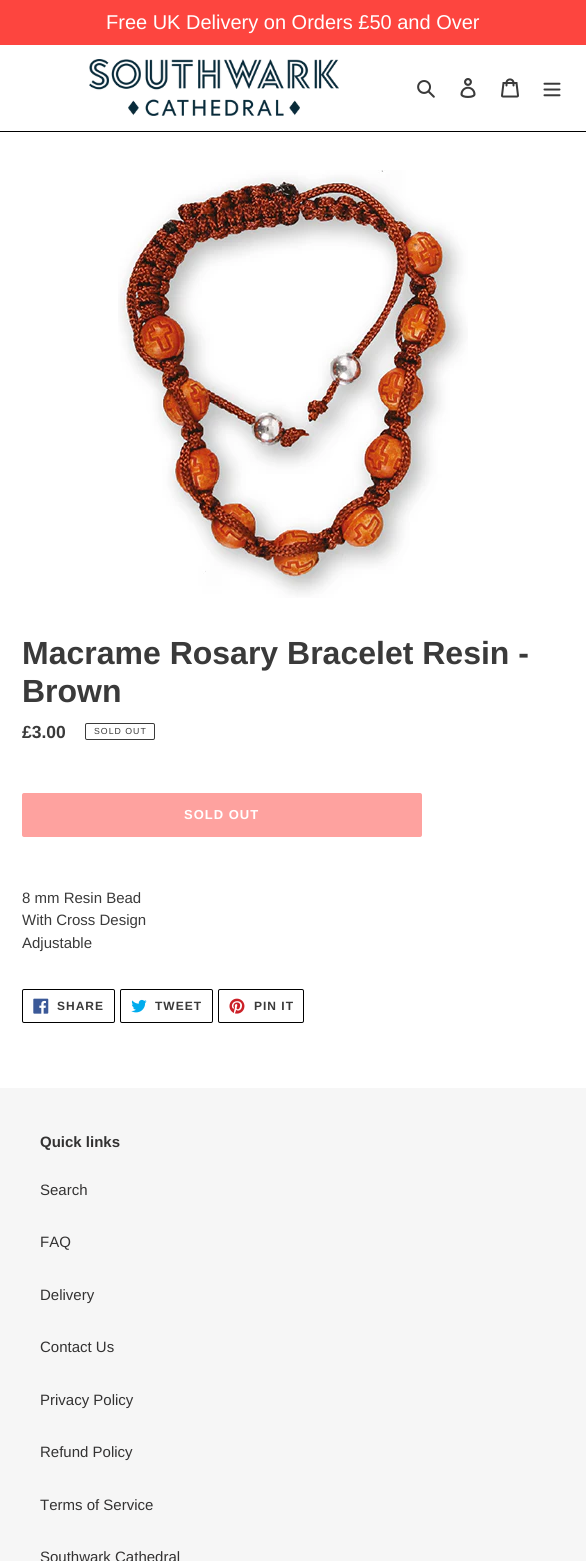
import math
import cairo


def use_color(cr, r, g, b):
  cr.set_source_rgb(r / 255, g / 255, b / 255)

def text(cr, x, y, s, family, size, color, bold=False, italic=False):
  cr.select_font_face(family, cairo.FONT_SLANT_ITALIC if italic else cairo.FONT_SLANT_NORMAL, cairo.FONT_WEIGHT_BOLD if bold else cairo.FONT_WEIGHT_NORMAL)
  cr.set_font_size(size)
  use_color(cr, *color)
  cr.move_to(x, y)
  cr.show_text(s)

def spaced_text(cr, x, y, s, letter, word):
  cr.move_to(x, y)
  for ch in s:
    cr.show_text(ch)
    cr.rel_move_to(letter + word * (ch == ' '), 0)

def box(cr, x, y, w, h, *color):
  use_color(cr, *color)
  cr.rectangle(x, y, w, h)
  cr.fill()

def round_rect(cr, x, y, w, h, r):
  cr.new_sub_path()
  for i, (u, v) in enumerate([(x + w - r, y + h - r), (x + r, y + h - r), (x + r, y + r), (x + w - r, y + r)]):
    cr.arc(u, v, r, i * math.pi / 2, (i + 1) * math.pi / 2)
  cr.close_path()

def picture(cr, path, x, y, w, h):
  cr.save()
  cr.set_source_surface(cairo.ImageSurface.create_from_png(path), x, y)
  cr.rectangle(x, y, w, h)
  cr.fill()
  cr.restore()

def draw(cr):
  use_color(cr, 255, 255, 255)
  cr.paint()
  box(cr, 0, 0, 586, 45, 253, 69, 63)
  box(cr, 0, 131, 586, 1, 0, 0, 0)
  picture(cr, "img_01.png", 89, 59, 250, 57)
  picture(cr, "img_02.png", 417, 80, 18, 18)
  picture(cr, "img_03.png", 460, 78, 16, 20)
  picture(cr, "img_04.png", 501, 78, 18, 20)
  picture(cr, "img_05.png", 543, 82, 18, 15)
  picture(cr, "img_06.png", 118, 170, 350, 428)
  round_rect(cr, 85.5, 723.5, 69, 16, 1.5)
  use_color(cr, 58, 58, 58)
  cr.set_line_width(1)
  cr.stroke()
  use_color(cr, 254, 162, 159)
  round_rect(cr, 22, 793, 400, 44, 2)
  cr.fill()
  round_rect(cr, 22.5, 989.5, 92, 33, 1.5)
  use_color(cr, 0, 0, 0)
  cr.stroke()
  picture(cr, "img_07.png", 33, 998, 16, 16)
  round_rect(cr, 120.5, 989.5, 92, 33, 1.5)
  cr.stroke()
  picture(cr, "img_08.png", 131, 999, 16, 14)
  round_rect(cr, 218.5, 989.5, 85, 33, 1.5)
  cr.stroke()
  picture(cr, "img_09.png", 229, 998, 16, 16)
  box(cr, 0, 1088, 586, 473, 246, 246, 246)
  text(cr, 106, 29, "Free UK Delivery on Orders £50 and Over", "Liberation Sans", 20, (255, 255, 255))
  text(cr, 22, 664, "Macrame Rosary Bracelet Resin -", "Liberation Sans", 32, (58, 58, 58), bold=True)
  text(cr, 22, 702, "Brown", "Liberation Sans", 32, (58, 58, 58), bold=True)
  text(cr, 22, 738, "£3.00", "Liberation Sans", 17.5, (58, 58, 58), bold=True)
  cr.select_font_face("Liberation Sans")
  cr.set_font_size(8.75)
  spaced_text(cr, 94, 734, "SOLD OUT", 1, 0)
  cr.select_font_face("Liberation Sans", cairo.FONT_SLANT_NORMAL, cairo.FONT_WEIGHT_BOLD)
  cr.set_font_size(13)
  use_color(cr, 255, 255, 255)
  spaced_text(cr, 184, 819, "SOLD OUT", 1, 0)
  text(cr, 22, 903, "8 mm Resin Bead", "Liberation Sans", 15, (58, 58, 58))
  text(cr, 22, 925, "With Cross Design", "Liberation Sans", 15, (58, 58, 58))
  text(cr, 22, 948, "Adjustable", "Liberation Sans", 15, (58, 58, 58))
  cr.select_font_face("Liberation Sans", cairo.FONT_SLANT_NORMAL, cairo.FONT_WEIGHT_BOLD)
  cr.set_font_size(12)
  spaced_text(cr, 57, 1010, "SHARE", 1, 0)
  spaced_text(cr, 155, 1010, "TWEET", 1, 0)
  spaced_text(cr, 254, 1010, "PIN IT", 1, 0)
  text(cr, 40, 1147, "Quick links", "Liberation Sans", 15, (51, 50, 50), bold=True)
  text(cr, 40, 1195, "Search", "Liberation Sans", 15, (51, 50, 50))
  text(cr, 40, 1247, "FAQ", "Liberation Sans", 15, (51, 50, 50))
  text(cr, 40, 1300, "Delivery", "Liberation Sans", 15, (51, 50, 50))
  text(cr, 40, 1352, "Contact Us", "Liberation Sans", 15, (51, 50, 50))
  text(cr, 40, 1405, "Privacy Policy", "Liberation Sans", 15, (51, 50, 50))
  text(cr, 40, 1457, "Refund Policy", "Liberation Sans", 15, (51, 50, 50))
  text(cr, 40, 1510, "Terms of Service", "Liberation Sans", 15, (51, 50, 50))
  text(cr, 40, 1562, "Southwark Cathedral", "Liberation Sans", 15, (51, 50, 50))


surface = cairo.ImageSurface(cairo.FORMAT_RGB24, 586, 1561)
cr = cairo.Context(surface)
options = cairo.FontOptions()
options.set_hint_metrics(cairo.HINT_METRICS_OFF)
options.set_hint_style(cairo.HINT_STYLE_NONE)
cr.set_font_options(options)
cr.set_miter_limit(4)
draw(cr)
surface.write_to_png("out.png")
